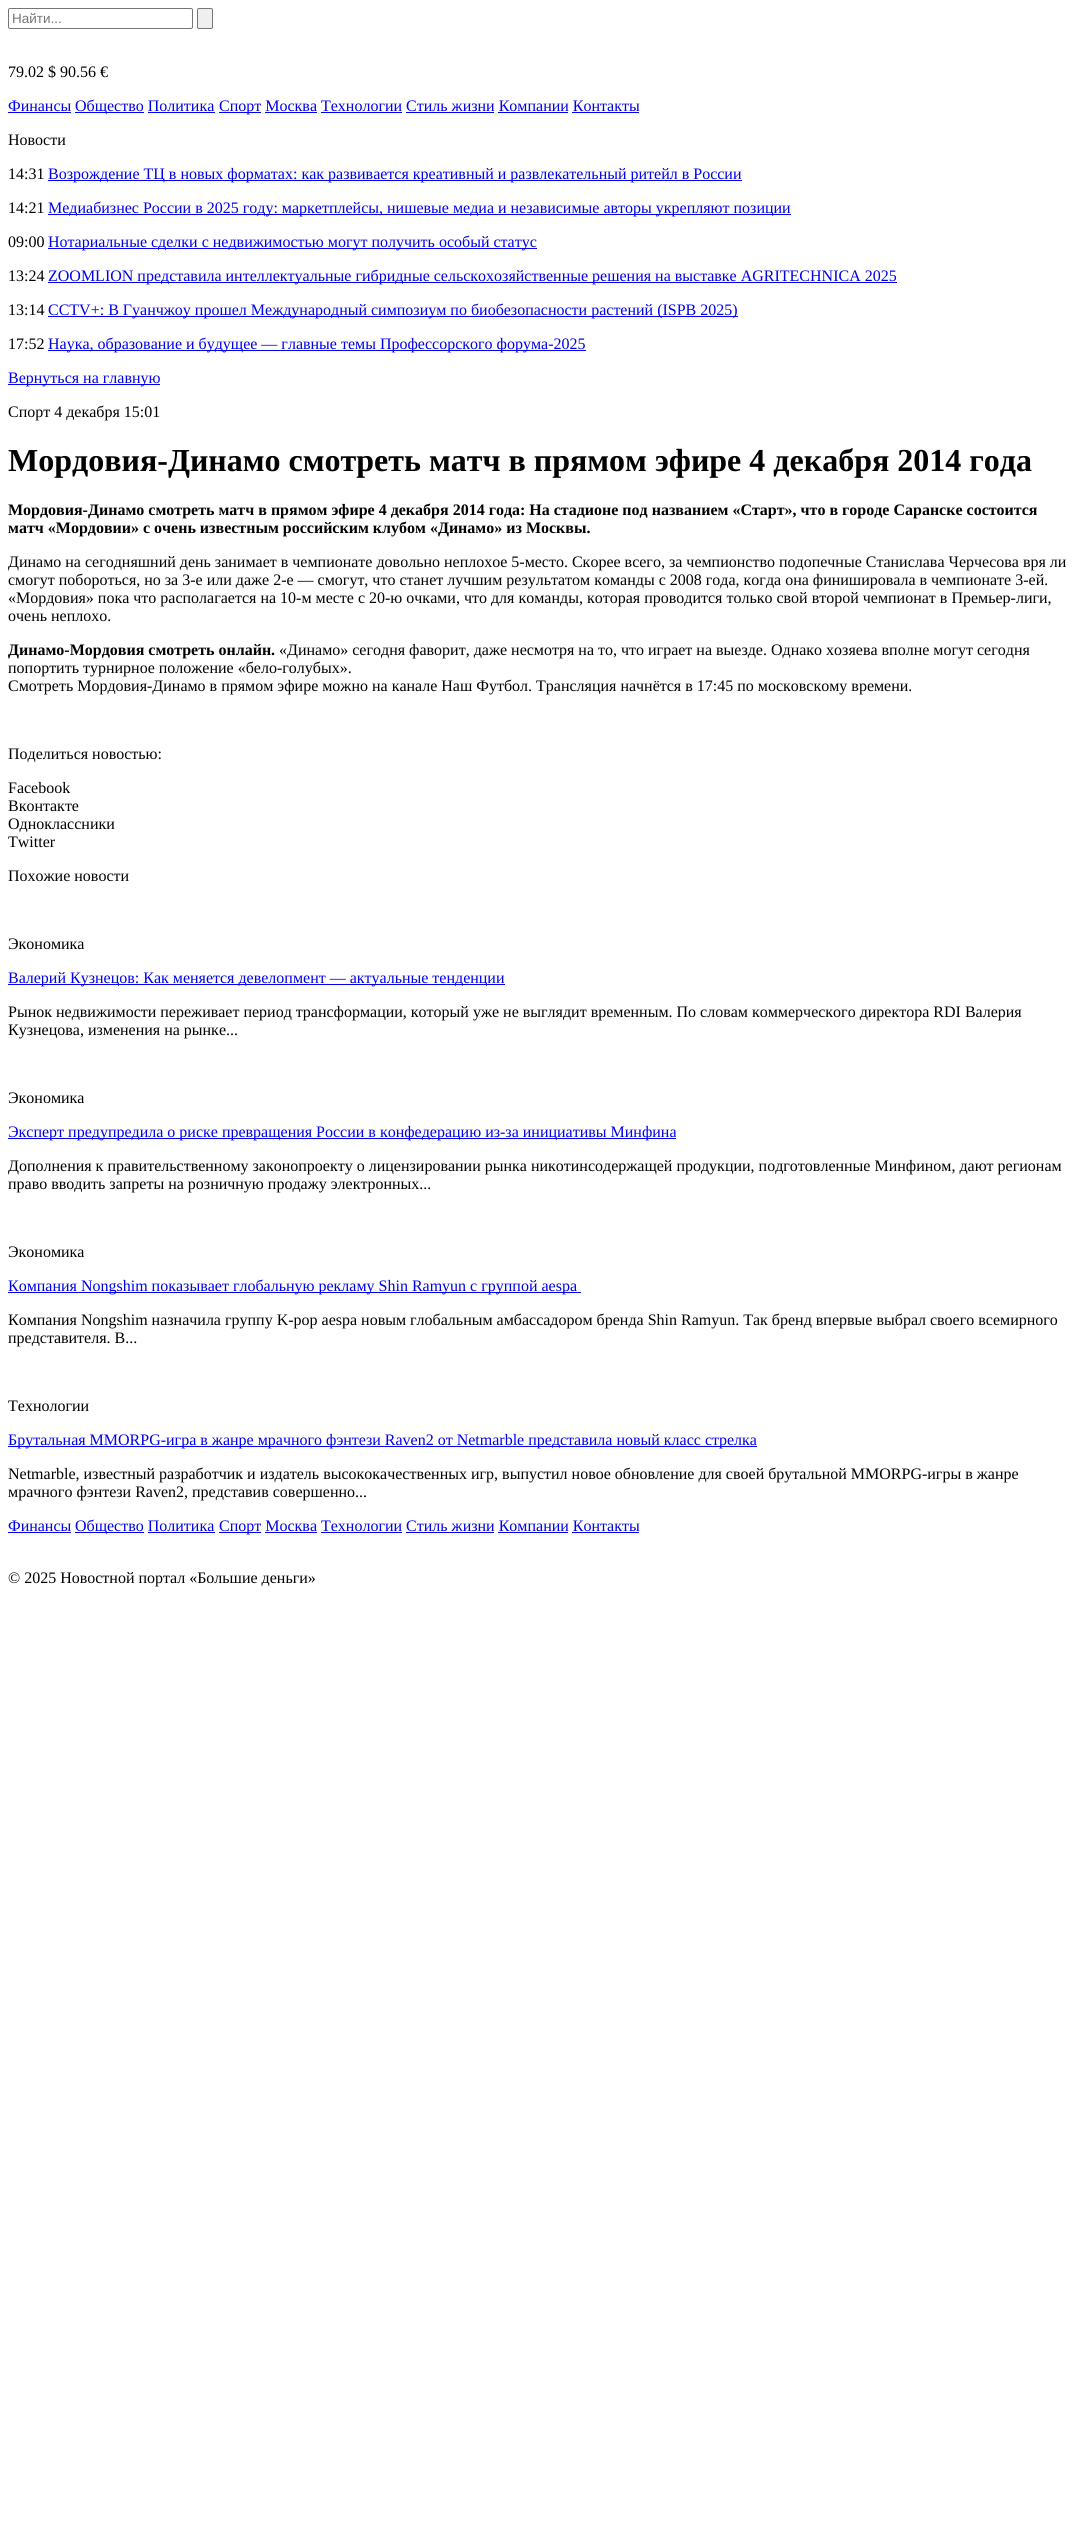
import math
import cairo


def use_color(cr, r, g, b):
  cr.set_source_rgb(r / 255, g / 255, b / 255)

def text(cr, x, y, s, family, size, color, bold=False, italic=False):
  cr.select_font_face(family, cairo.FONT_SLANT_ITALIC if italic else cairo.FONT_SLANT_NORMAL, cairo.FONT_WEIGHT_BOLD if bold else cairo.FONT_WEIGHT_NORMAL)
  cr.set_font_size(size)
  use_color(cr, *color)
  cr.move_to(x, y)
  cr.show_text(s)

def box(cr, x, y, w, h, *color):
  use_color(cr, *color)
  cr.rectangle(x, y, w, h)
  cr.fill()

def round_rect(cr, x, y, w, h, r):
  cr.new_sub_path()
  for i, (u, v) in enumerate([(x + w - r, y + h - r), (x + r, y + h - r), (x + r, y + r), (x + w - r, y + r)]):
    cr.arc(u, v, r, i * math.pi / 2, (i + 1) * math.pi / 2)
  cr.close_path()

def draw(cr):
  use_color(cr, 255, 255, 255)
  cr.paint()
  round_rect(cr, 8.5, 8.5, 184, 20, 1.5)
  use_color(cr, 118, 118, 118)
  cr.set_line_width(1)
  cr.stroke()
  use_color(cr, 239, 239, 239)
  round_rect(cr, 197.5, 8.5, 15, 20, 1.5)
  cr.fill_preserve()
  use_color(cr, 118, 118, 118)
  cr.stroke()
  box(cr, 8, 112, 63, 1, 0, 0, 238)
  box(cr, 75, 112, 69, 1, 0, 0, 238)
  box(cr, 219, 112, 42, 1, 0, 0, 238)
  box(cr, 148, 112, 67, 1, 0, 0, 238)
  box(cr, 265, 112, 52, 1, 0, 0, 238)
  box(cr, 321, 112, 81, 1, 0, 0, 238)
  box(cr, 406, 112, 88, 1, 0, 0, 238)
  box(cr, 498, 112, 70, 1, 0, 0, 238)
  box(cr, 572, 112, 67, 1, 0, 0, 238)
  box(cr, 48, 180, 694, 1, 0, 0, 238)
  box(cr, 48, 214, 743, 1, 0, 0, 238)
  box(cr, 48, 248, 489, 1, 0, 0, 238)
  box(cr, 48, 282, 849, 1, 0, 0, 238)
  box(cr, 48, 316, 690, 1, 0, 0, 238)
  box(cr, 48, 350, 538, 1, 0, 0, 238)
  box(cr, 8, 384, 152, 1, 0, 0, 238)
  box(cr, 8, 984, 497, 1, 0, 0, 238)
  box(cr, 8, 1138, 668, 1, 0, 0, 238)
  box(cr, 8, 1292, 573, 1, 0, 0, 238)
  box(cr, 8, 1446, 749, 1, 0, 0, 238)
  box(cr, 8, 1532, 63, 1, 0, 0, 238)
  box(cr, 75, 1532, 69, 1, 0, 0, 238)
  box(cr, 219, 1532, 42, 1, 0, 0, 238)
  box(cr, 148, 1532, 67, 1, 0, 0, 238)
  box(cr, 265, 1532, 52, 1, 0, 0, 238)
  box(cr, 321, 1532, 81, 1, 0, 0, 238)
  box(cr, 406, 1532, 88, 1, 0, 0, 238)
  box(cr, 498, 1532, 70, 1, 0, 0, 238)
  box(cr, 572, 1532, 67, 1, 0, 0, 238)
  text(cr, 12, 23, "Найти...", "Liberation Sans", 13.5, (117, 117, 117))
  text(cr, 8, 77, "79.02 $ 90.56 €", "Liberation Serif", 16, (0, 0, 0))
  text(cr, 8, 111, "Финансы", "Liberation Serif", 16, (0, 0, 238))
  text(cr, 75, 111, "Общество Политика", "Liberation Serif", 16, (0, 0, 238))
  text(cr, 219, 111, "Спорт Москва Технологии Стиль жизни Компании Контакты", "Liberation Serif", 16, (0, 0, 238))
  text(cr, 8, 145, "Новости", "Liberation Serif", 16, (0, 0, 0))
  text(cr, 8, 179, "14:31", "Liberation Serif", 16, (0, 0, 0))
  text(cr, 48, 179, "Возрождение ТЦ в новых форматах: как развивается креативный и развлекательный ритейл в России", "Liberation Serif", 16, (0, 0, 238))
  text(cr, 8, 213, "14:21", "Liberation Serif", 16, (0, 0, 0))
  text(cr, 48, 213, "Медиабизнес России в 2025 году: маркетплейсы, нишевые медиа и независимые авторы укрепляют позиции", "Liberation Serif", 16, (0, 0, 238))
  text(cr, 8, 247, "09:00", "Liberation Serif", 16, (0, 0, 0))
  text(cr, 48, 247, "Нотариальные сделки с недвижимостью могут получить особый статус", "Liberation Serif", 16, (0, 0, 238))
  text(cr, 8, 281, "13:24", "Liberation Serif", 16, (0, 0, 0))
  text(cr, 48, 281, "ZOOMLION представила интеллектуальные гибридные сельскохозяйственные решения на выставке AGRITECHNICA 2025", "Liberation Serif", 16, (0, 0, 238))
  text(cr, 8, 315, "13:14", "Liberation Serif", 16, (0, 0, 0))
  text(cr, 48, 315, "CCTV+: В Гуанчжоу прошел Международный симпозиум по биобезопасности растений (ISPB 2025)", "Liberation Serif", 16, (0, 0, 238))
  text(cr, 8, 349, "17:52", "Liberation Serif", 16, (0, 0, 0))
  text(cr, 48, 349, "Наука, образование и будущее — главные темы Профессорского форума-2025", "Liberation Serif", 16, (0, 0, 238))
  text(cr, 8, 383, "Вернуться на главную", "Liberation Serif", 16, (0, 0, 238))
  text(cr, 8, 417, "Спорт 4 декабря 15:01", "Liberation Serif", 16, (0, 0, 0))
  text(cr, 8, 471, "Мордовия-Динамо смотреть матч в прямом эфире 4 декабря 2014 года", "Liberation Serif", 32, (0, 0, 0), bold=True)
  text(cr, 8, 515, "Мордовия-Динамо смотреть матч в прямом эфире 4 декабря 2014 года: На стадионе под названием «Старт», что в городе Саранске состоится", "Liberation Serif", 16, (0, 0, 0), bold=True)
  text(cr, 8, 533, "матч «Мордовии» с очень известным российским клубом «Динамо» из Москвы.", "Liberation Serif", 16, (0, 0, 0), bold=True)
  text(cr, 8, 567, "Динамо на сегодняшний день занимает в чемпионате довольно неплохое 5-место. Скорее всего, за чемпионство подопечные Станислава Черчесова вря ли", "Liberation Serif", 16, (0, 0, 0))
  text(cr, 8, 585, "смогут побороться, но за 3-е или даже 2-е — смогут, что станет лучшим результатом команды с 2008 года, когда она финишировала в чемпионате 3-ей.", "Liberation Serif", 16, (0, 0, 0))
  text(cr, 8, 603, "«Мордовия» пока что располагается на 10-м месте с 20-ю очками, что для команды, которая проводится только свой второй чемпионат в Премьер-лиги,", "Liberation Serif", 16, (0, 0, 0))
  text(cr, 8, 621, "очень неплохо.", "Liberation Serif", 16, (0, 0, 0))
  text(cr, 8, 655, "Динамо-Мордовия смотреть онлайн.", "Liberation Serif", 16, (0, 0, 0), bold=True)
  text(cr, 279, 655, "«Динамо» сегодня фаворит, даже несмотря на то, что играет на выезде. Однако хозяева вполне могут сегодня", "Liberation Serif", 16, (0, 0, 0))
  text(cr, 8, 673, "попортить турнирное положение «бело-голубых».", "Liberation Serif", 16, (0, 0, 0))
  text(cr, 8, 691, "Смотреть Мордовия-Динамо в прямом эфире можно на канале Наш Футбол. Трансляция начнётся в 17:45 по московскому времени.", "Liberation Serif", 16, (0, 0, 0))
  text(cr, 8, 759, "Поделиться новостью:", "Liberation Serif", 16, (0, 0, 0))
  text(cr, 8, 793, "Facebook", "Liberation Serif", 16, (0, 0, 0))
  text(cr, 8, 811, "Вконтакте", "Liberation Serif", 16, (0, 0, 0))
  text(cr, 8, 829, "Одноклассники", "Liberation Serif", 16, (0, 0, 0))
  text(cr, 8, 847, "Twitter", "Liberation Serif", 16, (0, 0, 0))
  text(cr, 8, 881, "Похожие новости", "Liberation Serif", 16, (0, 0, 0))
  text(cr, 8, 949, "Экономика", "Liberation Serif", 16, (0, 0, 0))
  text(cr, 8, 983, "Валерий Кузнецов: Как меняется девелопмент — актуальные тенденции", "Liberation Serif", 16, (0, 0, 238))
  text(cr, 8, 1017, "Рынок недвижимости переживает период трансформации, который уже не выглядит временным. По словам коммерческого директора RDI Валерия", "Liberation Serif", 16, (0, 0, 0))
  text(cr, 8, 1035, "Кузнецова, изменения на рынке...", "Liberation Serif", 16, (0, 0, 0))
  text(cr, 8, 1103, "Экономика", "Liberation Serif", 16, (0, 0, 0))
  text(cr, 8, 1137, "Эксперт предупредила о риске превращения России в конфедерацию из-за инициативы Минфина", "Liberation Serif", 16, (0, 0, 238))
  text(cr, 8, 1171, "Дополнения к правительственному законопроекту о лицензировании рынка никотинсодержащей продукции, подготовленные Минфином, дают регионам", "Liberation Serif", 16, (0, 0, 0))
  text(cr, 8, 1189, "право вводить запреты на розничную продажу электронных...", "Liberation Serif", 16, (0, 0, 0))
  text(cr, 8, 1257, "Экономика", "Liberation Serif", 16, (0, 0, 0))
  text(cr, 8, 1291, "Компания Nongshim показывает глобальную рекламу Shin Ramyun с группой aespa", "Liberation Serif", 16, (0, 0, 238))
  text(cr, 8, 1325, "Компания Nongshim назначила группу K-pop aespa новым глобальным амбассадором бренда Shin Ramyun. Так бренд впервые выбрал своего всемирного", "Liberation Serif", 16, (0, 0, 0))
  text(cr, 8, 1343, "представителя. В...", "Liberation Serif", 16, (0, 0, 0))
  text(cr, 8, 1411, "Технологии", "Liberation Serif", 16, (0, 0, 0))
  text(cr, 8, 1445, "Брутальная MMORPG-игра в жанре мрачного фэнтези Raven2 от Netmarble представила новый класс стрелка", "Liberation Serif", 16, (0, 0, 238))
  text(cr, 8, 1479, "Netmarble, известный разработчик и издатель высококачественных игр, выпустил новое обновление для своей брутальной MMORPG-игры в жанре", "Liberation Serif", 16, (0, 0, 0))
  text(cr, 8, 1497, "мрачного фэнтези Raven2, представив совершенно...", "Liberation Serif", 16, (0, 0, 0))
  text(cr, 8, 1531, "Финансы", "Liberation Serif", 16, (0, 0, 238))
  text(cr, 75, 1531, "Общество Политика", "Liberation Serif", 16, (0, 0, 238))
  text(cr, 219, 1531, "Спорт Москва Технологии Стиль жизни Компании Контакты", "Liberation Serif", 16, (0, 0, 238))
  text(cr, 8, 1583, "© 2025 Новостной портал «Большие деньги»", "Liberation Serif", 16, (0, 0, 0))


surface = cairo.ImageSurface(cairo.FORMAT_RGB24, 1079, 2539)
cr = cairo.Context(surface)
options = cairo.FontOptions()
options.set_hint_metrics(cairo.HINT_METRICS_OFF)
options.set_hint_style(cairo.HINT_STYLE_NONE)
cr.set_font_options(options)
cr.set_miter_limit(4)
draw(cr)
surface.write_to_png("out.png")
